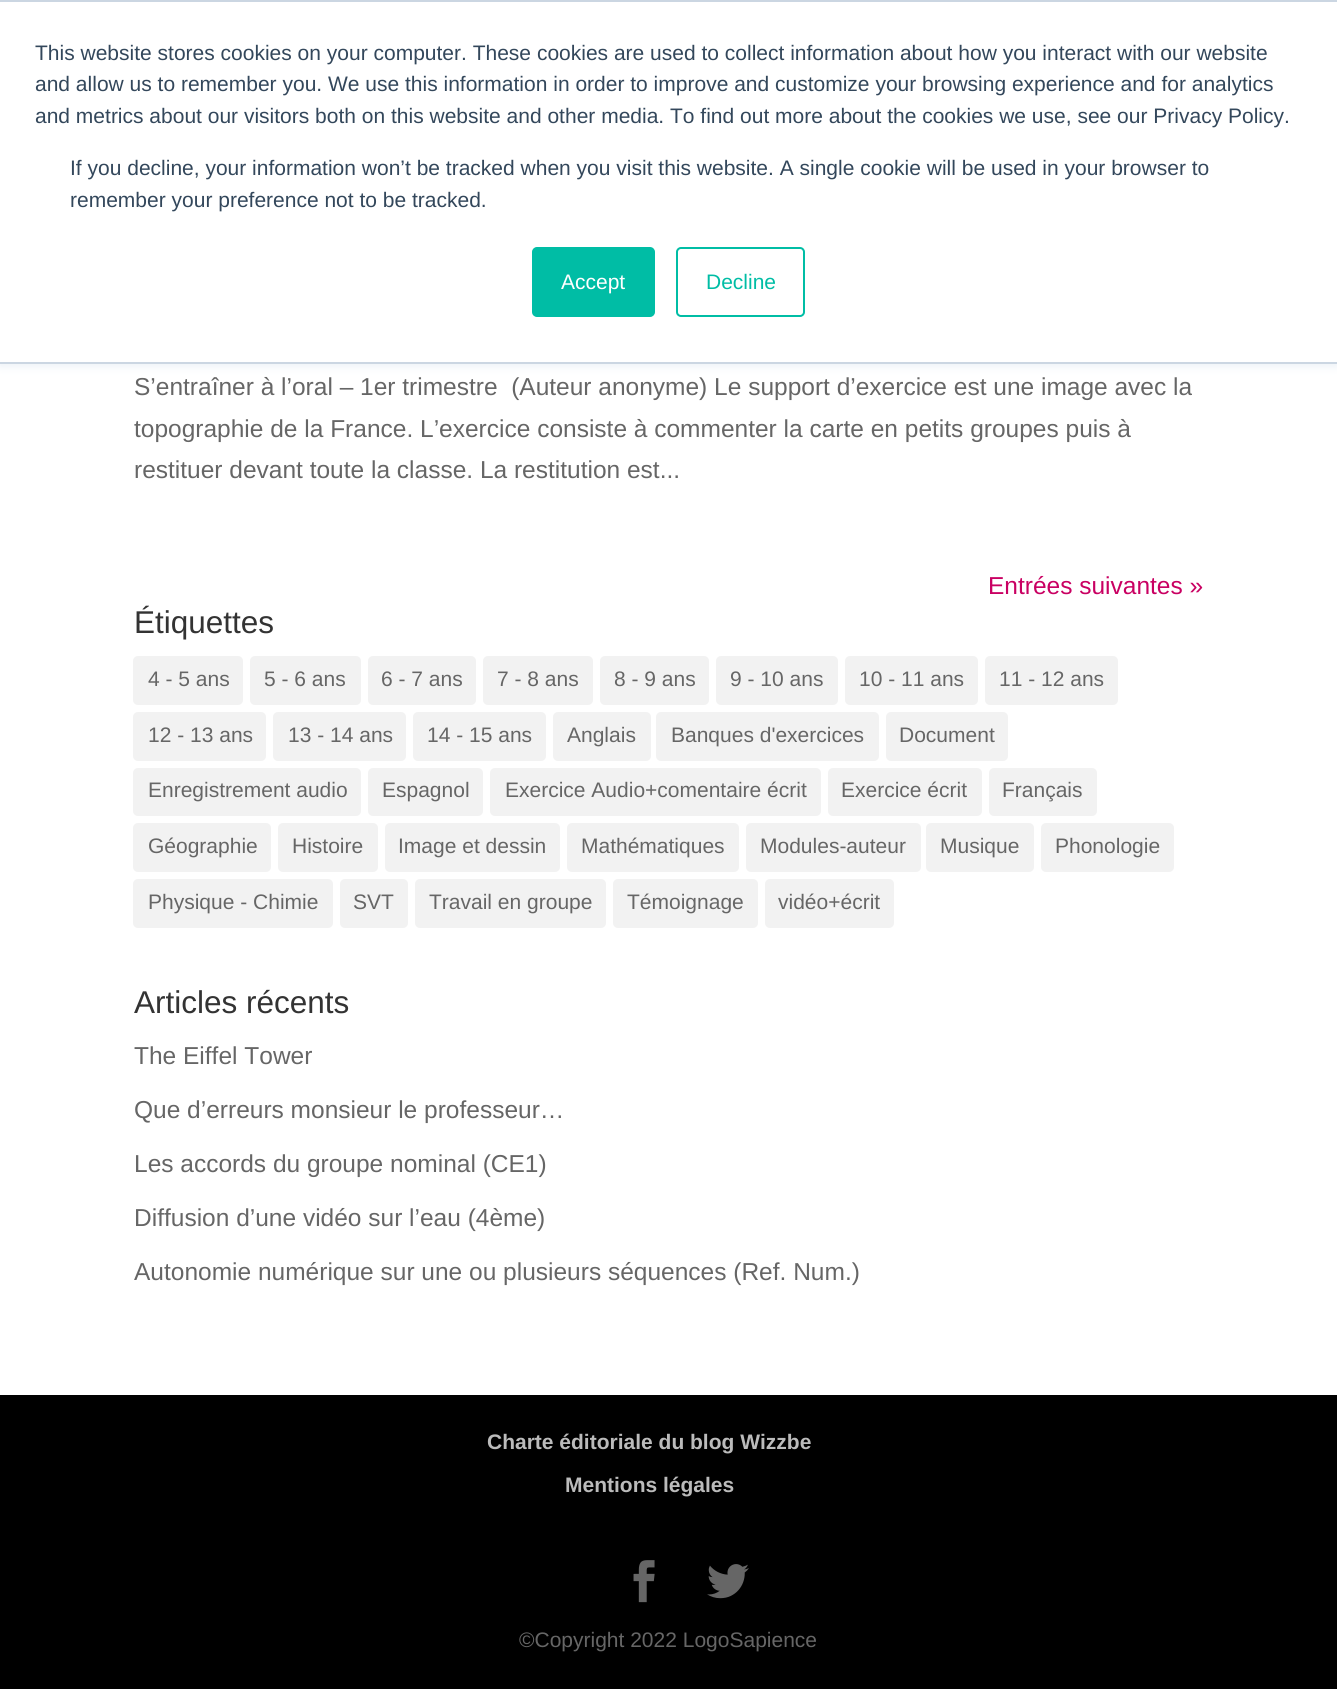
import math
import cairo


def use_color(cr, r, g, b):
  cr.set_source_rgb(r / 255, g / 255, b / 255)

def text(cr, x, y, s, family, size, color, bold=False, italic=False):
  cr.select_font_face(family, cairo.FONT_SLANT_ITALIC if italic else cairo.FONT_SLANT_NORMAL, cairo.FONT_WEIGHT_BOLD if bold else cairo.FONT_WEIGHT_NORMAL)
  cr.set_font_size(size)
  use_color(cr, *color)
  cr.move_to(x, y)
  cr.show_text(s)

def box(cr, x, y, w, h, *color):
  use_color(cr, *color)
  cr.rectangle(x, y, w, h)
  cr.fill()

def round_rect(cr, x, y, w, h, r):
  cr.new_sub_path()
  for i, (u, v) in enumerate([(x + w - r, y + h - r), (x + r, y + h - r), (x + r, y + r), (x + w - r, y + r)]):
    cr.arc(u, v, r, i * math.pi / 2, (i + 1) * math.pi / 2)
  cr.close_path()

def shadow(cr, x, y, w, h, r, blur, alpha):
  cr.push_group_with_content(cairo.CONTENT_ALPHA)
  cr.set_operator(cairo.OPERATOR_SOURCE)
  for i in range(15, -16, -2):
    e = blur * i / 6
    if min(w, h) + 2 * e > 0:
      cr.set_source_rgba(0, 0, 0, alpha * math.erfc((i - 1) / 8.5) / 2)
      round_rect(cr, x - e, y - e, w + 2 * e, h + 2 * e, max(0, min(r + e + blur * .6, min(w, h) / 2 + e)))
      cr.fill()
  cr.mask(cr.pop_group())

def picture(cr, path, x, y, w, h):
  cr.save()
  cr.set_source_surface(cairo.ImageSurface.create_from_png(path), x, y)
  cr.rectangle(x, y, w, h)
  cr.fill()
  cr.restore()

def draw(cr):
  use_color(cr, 255, 255, 255)
  cr.paint()
  use_color(cr, 234, 240, 246)
  shadow(cr, 0, 2, 1337, 364, 0, 4.5, 1)
  box(cr, 0, 2, 1337, 360, 255, 255, 255)
  box(cr, 0, 0, 1337, 2, 203, 214, 226)
  box(cr, 0, 362, 1337, 2, 203, 214, 226)
  use_color(cr, 0, 189, 165)
  round_rect(cr, 533, 248, 121, 68, 4)
  cr.fill_preserve()
  cr.stroke()
  round_rect(cr, 677, 248, 127, 68, 4)
  cr.stroke()
  use_color(cr, 242, 242, 242)
  round_rect(cr, 133, 656, 110, 49, 5)
  cr.fill()
  round_rect(cr, 250, 656, 111, 49, 5)
  cr.fill()
  round_rect(cr, 368, 656, 108, 49, 5)
  cr.fill()
  round_rect(cr, 483, 656, 110, 49, 5)
  cr.fill()
  round_rect(cr, 600, 656, 109, 49, 5)
  cr.fill()
  round_rect(cr, 716, 656, 122, 49, 5)
  cr.fill()
  round_rect(cr, 845, 656, 133, 49, 5)
  cr.fill()
  round_rect(cr, 985, 656, 133, 49, 5)
  cr.fill()
  round_rect(cr, 133, 712, 133, 49, 5)
  cr.fill()
  round_rect(cr, 273, 712, 133, 49, 5)
  cr.fill()
  round_rect(cr, 413, 712, 133, 49, 5)
  cr.fill()
  round_rect(cr, 553, 712, 98, 49, 5)
  cr.fill()
  round_rect(cr, 656, 712, 223, 49, 5)
  cr.fill()
  round_rect(cr, 886, 712, 122, 49, 5)
  cr.fill()
  round_rect(cr, 133, 768, 228, 48, 5)
  cr.fill()
  round_rect(cr, 368, 768, 115, 48, 5)
  cr.fill()
  round_rect(cr, 490, 768, 331, 48, 5)
  cr.fill()
  round_rect(cr, 828, 768, 154, 48, 5)
  cr.fill()
  round_rect(cr, 989, 768, 108, 48, 5)
  cr.fill()
  round_rect(cr, 133, 823, 138, 49, 5)
  cr.fill()
  round_rect(cr, 278, 823, 100, 49, 5)
  cr.fill()
  round_rect(cr, 385, 823, 175, 49, 5)
  cr.fill()
  round_rect(cr, 567, 823, 172, 49, 5)
  cr.fill()
  round_rect(cr, 746, 823, 175, 49, 5)
  cr.fill()
  round_rect(cr, 926, 823, 108, 49, 5)
  cr.fill()
  round_rect(cr, 1041, 823, 133, 49, 5)
  cr.fill()
  round_rect(cr, 133, 879, 200, 49, 5)
  cr.fill()
  round_rect(cr, 340, 879, 68, 49, 5)
  cr.fill()
  round_rect(cr, 415, 879, 191, 49, 5)
  cr.fill()
  round_rect(cr, 613, 879, 145, 49, 5)
  cr.fill()
  round_rect(cr, 765, 879, 129, 49, 5)
  cr.fill()
  box(cr, 0, 1395, 1337, 294, 0, 0, 0)
  picture(cr, "img_01.png", 633, 1560, 22, 43)
  picture(cr, "img_02.png", 707, 1564, 42, 35)
  text(cr, 35, 60, "This website stores cookies on your computer. These cookies are used to collect information about how you interact with our website", "Liberation Sans", 21, (51, 71, 91))
  text(cr, 35, 91, "and allow us to remember you. We use this information in order to improve and customize your browsing experience and for analytics", "Liberation Sans", 21, (51, 71, 91))
  text(cr, 35, 123, "and metrics about our visitors both on this website and other media. To find out more about the cookies we use, see our Privacy Policy.", "Liberation Sans", 21, (51, 71, 91))
  text(cr, 70, 175, "If you decline, your information won’t be tracked when you visit this website. A single cookie will be used in your browser to", "Liberation Sans", 21, (51, 71, 91))
  text(cr, 70, 207, "remember your preference not to be tracked.", "Liberation Sans", 21, (51, 71, 91))
  text(cr, 561, 289, "Accept", "Liberation Sans", 21, (255, 255, 255))
  text(cr, 706, 289, "Decline", "Liberation Sans", 21, (0, 189, 165))
  text(cr, 134, 395, "S’entraîner à l’oral – 1er trimestre  (Auteur anonyme) Le support d’exercice est une image avec la", "Liberation Sans", 24.5, (102, 102, 102))
  text(cr, 134, 437, "topographie de la France. L’exercice consiste à commenter la carte en petits groupes puis à", "Liberation Sans", 24.5, (102, 102, 102))
  text(cr, 134, 478, "restituer devant toute la classe. La restitution est...", "Liberation Sans", 24.5, (102, 102, 102))
  text(cr, 988, 594, "Entrées suivantes »", "Liberation Sans", 24.5, (201, 0, 98))
  text(cr, 134, 633, "Étiquettes", "Liberation Sans", 31.5, (51, 51, 51))
  text(cr, 148, 686, "4 - 5 ans", "Liberation Sans", 21, (102, 102, 102))
  text(cr, 264, 686, "5 - 6 ans", "Liberation Sans", 21, (102, 102, 102))
  text(cr, 381, 686, "6 - 7 ans", "Liberation Sans", 21, (102, 102, 102))
  text(cr, 497, 686, "7 - 8 ans", "Liberation Sans", 21, (102, 102, 102))
  text(cr, 614, 686, "8 - 9 ans", "Liberation Sans", 21, (102, 102, 102))
  text(cr, 730, 686, "9 - 10 ans", "Liberation Sans", 21, (102, 102, 102))
  text(cr, 859, 686, "10 - 11 ans", "Liberation Sans", 21, (102, 102, 102))
  text(cr, 999, 686, "11 - 12 ans", "Liberation Sans", 21, (102, 102, 102))
  text(cr, 148, 742, "12 - 13 ans", "Liberation Sans", 21, (102, 102, 102))
  text(cr, 288, 742, "13 - 14 ans", "Liberation Sans", 21, (102, 102, 102))
  text(cr, 427, 742, "14 - 15 ans", "Liberation Sans", 21, (102, 102, 102))
  text(cr, 567, 742, "Anglais", "Liberation Sans", 21, (102, 102, 102))
  text(cr, 671, 742, "Banques d'exercices", "Liberation Sans", 21, (102, 102, 102))
  text(cr, 899, 742, "Document", "Liberation Sans", 21, (102, 102, 102))
  text(cr, 148, 797, "Enregistrement audio", "Liberation Sans", 21, (102, 102, 102))
  text(cr, 382, 797, "Espagnol", "Liberation Sans", 21, (102, 102, 102))
  text(cr, 505, 797, "Exercice Audio+comentaire écrit", "Liberation Sans", 21, (102, 102, 102))
  text(cr, 841, 797, "Exercice écrit", "Liberation Sans", 21, (102, 102, 102))
  text(cr, 1002, 797, "Français", "Liberation Sans", 21, (102, 102, 102))
  text(cr, 148, 853, "Géographie", "Liberation Sans", 21, (102, 102, 102))
  text(cr, 292, 853, "Histoire", "Liberation Sans", 21, (102, 102, 102))
  text(cr, 398, 853, "Image et dessin", "Liberation Sans", 21, (102, 102, 102))
  text(cr, 581, 853, "Mathématiques", "Liberation Sans", 21, (102, 102, 102))
  text(cr, 760, 853, "Modules-auteur", "Liberation Sans", 21, (102, 102, 102))
  text(cr, 940, 853, "Musique", "Liberation Sans", 21, (102, 102, 102))
  text(cr, 1055, 853, "Phonologie", "Liberation Sans", 21, (102, 102, 102))
  text(cr, 148, 909, "Physique - Chimie", "Liberation Sans", 21, (102, 102, 102))
  text(cr, 353, 909, "SVT", "Liberation Sans", 21, (102, 102, 102))
  text(cr, 429, 909, "Travail en groupe", "Liberation Sans", 21, (102, 102, 102))
  text(cr, 627, 909, "Témoignage", "Liberation Sans", 21, (102, 102, 102))
  text(cr, 778, 909, "vidéo+écrit", "Liberation Sans", 21, (102, 102, 102))
  text(cr, 134, 1013, "Articles récents", "Liberation Sans", 31.5, (51, 51, 51))
  text(cr, 134, 1064, "The Eiffel Tower", "Liberation Sans", 24.5, (102, 102, 102))
  text(cr, 134, 1118, "Que d’erreurs monsieur le professeur…", "Liberation Sans", 24.5, (102, 102, 102))
  text(cr, 134, 1172, "Les accords du groupe nominal (CE1)", "Liberation Sans", 24.5, (102, 102, 102))
  text(cr, 134, 1226, "Diffusion d’une vidéo sur l’eau (4ème)", "Liberation Sans", 24.5, (102, 102, 102))
  text(cr, 134, 1280, "Autonomie numérique sur une ou plusieurs séquences (Ref. Num.)", "Liberation Sans", 24.5, (102, 102, 102))
  text(cr, 487, 1449, "Charte éditoriale du blog Wizzbe", "Liberation Sans", 21, (187, 187, 187), bold=True)
  text(cr, 565, 1492, "Mentions légales", "Liberation Sans", 21, (187, 187, 187), bold=True)
  text(cr, 519, 1647, "©Copyright 2022 LogoSapience", "Liberation Sans", 21, (102, 102, 102))


surface = cairo.ImageSurface(cairo.FORMAT_RGB24, 1337, 1695)
cr = cairo.Context(surface)
options = cairo.FontOptions()
options.set_hint_metrics(cairo.HINT_METRICS_OFF)
options.set_hint_style(cairo.HINT_STYLE_NONE)
cr.set_font_options(options)
cr.set_miter_limit(4)
draw(cr)
surface.write_to_png("out.png")
